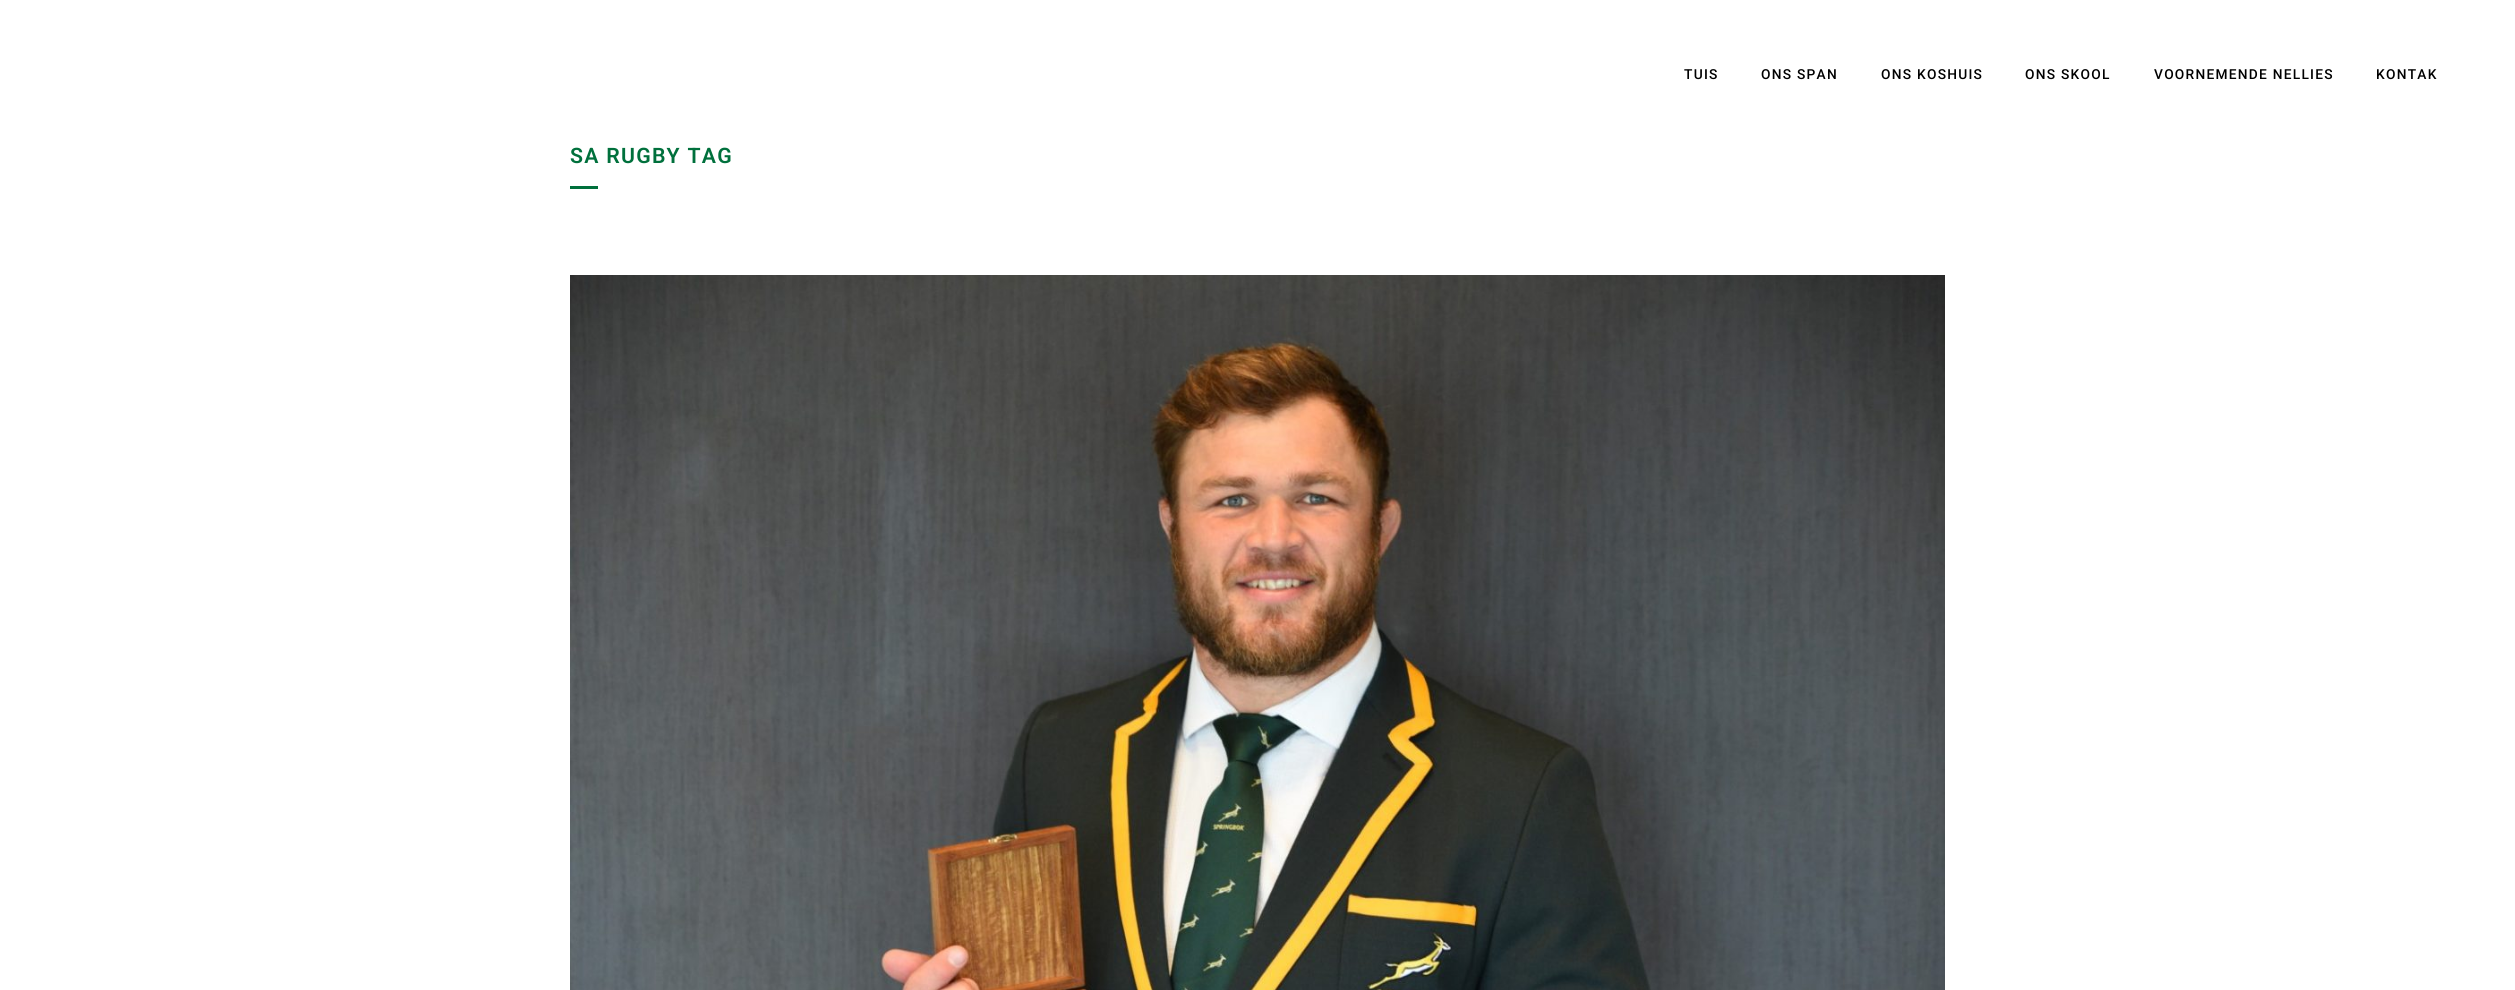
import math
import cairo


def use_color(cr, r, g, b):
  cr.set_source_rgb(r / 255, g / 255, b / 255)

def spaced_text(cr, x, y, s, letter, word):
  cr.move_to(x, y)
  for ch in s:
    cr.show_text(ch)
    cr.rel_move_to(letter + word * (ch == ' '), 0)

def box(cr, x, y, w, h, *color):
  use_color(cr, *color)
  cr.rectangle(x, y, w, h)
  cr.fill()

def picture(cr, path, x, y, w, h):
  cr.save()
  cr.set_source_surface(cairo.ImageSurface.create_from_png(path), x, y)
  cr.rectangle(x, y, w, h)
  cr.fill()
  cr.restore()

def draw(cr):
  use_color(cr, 255, 255, 255)
  cr.paint()
  box(cr, 570, 186, 28, 3, 0, 112, 60)
  picture(cr, "img_01.png", 570, 275, 1375, 715)
  cr.select_font_face("Roboto Medium")
  cr.set_font_size(13.75)
  use_color(cr, 0, 0, 0)
  spaced_text(cr, 1684, 79, "TUIS", 1.25, 0)
  spaced_text(cr, 1761, 79, "ONS SPAN", 1.25, 0)
  spaced_text(cr, 1881, 79, "ONS KOSHUIS", 1.25, 0)
  spaced_text(cr, 2025, 79, "ONS SKOOL", 1.25, 0)
  spaced_text(cr, 2154, 79, "VOORNEMENDE NELLIES", 1.25, 0)
  spaced_text(cr, 2376, 79, "KONTAK", 1.25, 0)
  cr.select_font_face("Roboto SemiBold")
  cr.set_font_size(21.25)
  use_color(cr, 0, 112, 60)
  spaced_text(cr, 570, 163, "SA RUGBY TAG", 1.25, 0)


surface = cairo.ImageSurface(cairo.FORMAT_RGB24, 2515, 990)
cr = cairo.Context(surface)
options = cairo.FontOptions()
options.set_hint_metrics(cairo.HINT_METRICS_OFF)
options.set_hint_style(cairo.HINT_STYLE_NONE)
cr.set_font_options(options)
cr.set_miter_limit(4)
draw(cr)
surface.write_to_png("out.png")
